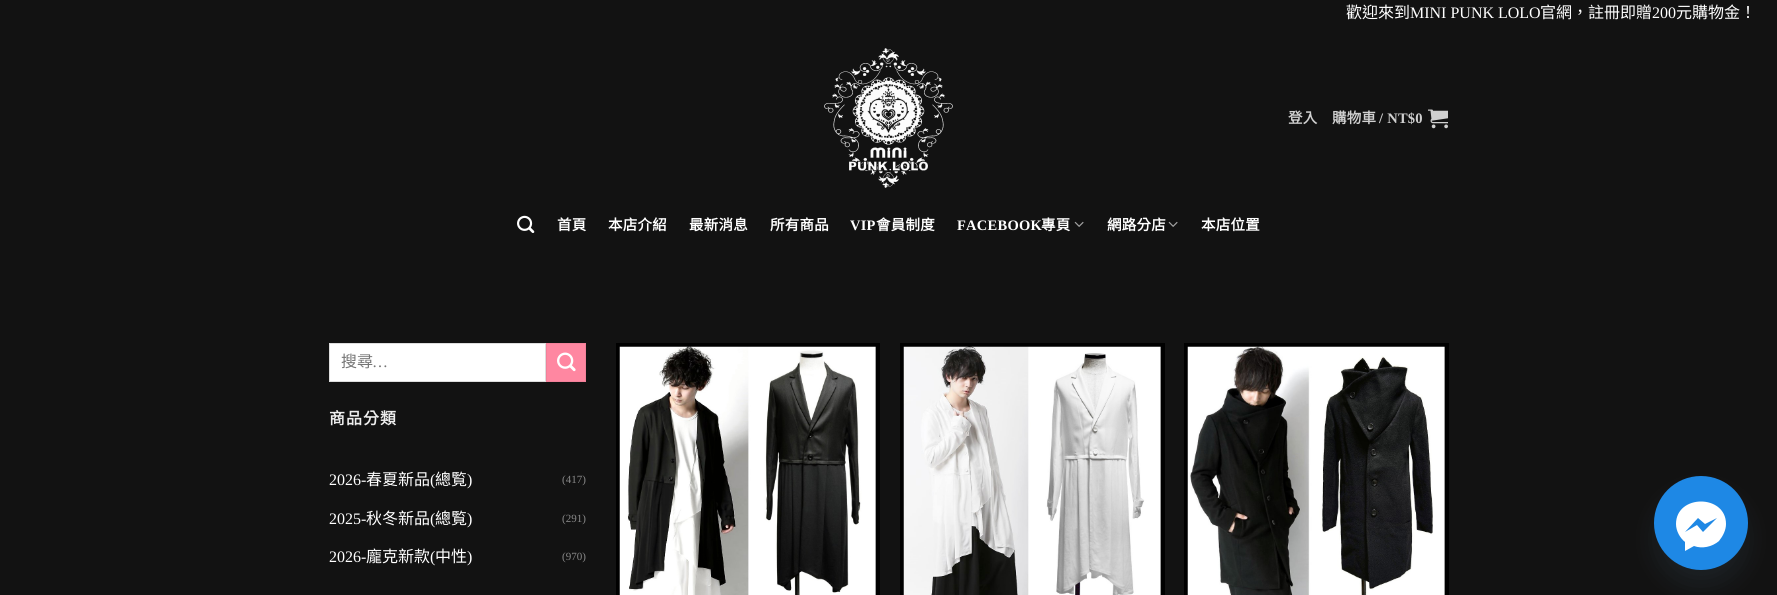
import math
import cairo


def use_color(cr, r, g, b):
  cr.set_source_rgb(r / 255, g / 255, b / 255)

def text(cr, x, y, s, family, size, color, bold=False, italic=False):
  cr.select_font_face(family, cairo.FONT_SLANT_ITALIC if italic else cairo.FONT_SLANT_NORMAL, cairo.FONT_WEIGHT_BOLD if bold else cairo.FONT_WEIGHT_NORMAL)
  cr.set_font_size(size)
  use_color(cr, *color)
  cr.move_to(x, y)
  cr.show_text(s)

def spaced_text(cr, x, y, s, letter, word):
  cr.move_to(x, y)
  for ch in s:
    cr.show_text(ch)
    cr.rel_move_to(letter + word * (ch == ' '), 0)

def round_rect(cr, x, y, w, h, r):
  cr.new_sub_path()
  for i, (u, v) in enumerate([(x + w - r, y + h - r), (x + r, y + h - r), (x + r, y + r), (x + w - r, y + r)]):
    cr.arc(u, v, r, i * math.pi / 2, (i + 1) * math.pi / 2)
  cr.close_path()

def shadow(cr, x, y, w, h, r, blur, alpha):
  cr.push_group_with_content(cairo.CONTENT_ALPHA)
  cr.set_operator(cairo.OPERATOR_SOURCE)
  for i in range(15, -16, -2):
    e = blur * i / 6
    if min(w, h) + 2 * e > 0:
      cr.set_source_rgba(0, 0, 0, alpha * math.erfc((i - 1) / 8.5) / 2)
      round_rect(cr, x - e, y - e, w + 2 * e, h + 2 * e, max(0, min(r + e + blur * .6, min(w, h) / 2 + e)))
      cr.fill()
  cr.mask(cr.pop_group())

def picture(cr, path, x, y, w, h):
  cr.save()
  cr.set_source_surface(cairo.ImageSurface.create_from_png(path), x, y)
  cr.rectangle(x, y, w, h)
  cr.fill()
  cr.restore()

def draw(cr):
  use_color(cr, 18, 18, 18)
  cr.paint()
  picture(cr, "img_01.png", 824, 48, 129, 140)
  picture(cr, "img_02.png", 1428, 109, 20, 20)
  picture(cr, "img_03.png", 517, 215, 18, 18)
  picture(cr, "img_04.png", 1074, 221, 10, 6)
  picture(cr, "img_04.png", 1168, 221, 10, 6)
  use_color(cr, 255, 255, 255)
  cr.rectangle(329.5, 343.5, 216, 38)
  cr.fill_preserve()
  use_color(cr, 221, 221, 221)
  cr.set_line_width(1)
  cr.stroke()
  use_color(cr, 255, 135, 161)
  cr.rectangle(546.5, 343.5, 39, 38)
  cr.fill_preserve()
  use_color(cr, 242, 128, 153)
  cr.stroke()
  picture(cr, "img_05.png", 557, 352, 19, 20)
  picture(cr, "img_06.png", 616, 343, 264, 252)
  picture(cr, "img_07.png", 900, 343, 265, 252)
  picture(cr, "img_08.png", 1184, 343, 265, 252)
  use_color(cr, 73, 104, 126)
  shadow(cr, 1654, 492, 94, 94, 47, 12, 0.16)
  use_color(cr, 30, 136, 229)
  cr.arc(1701, 523, 47, 0, 2 * math.pi)
  cr.fill()
  use_color(cr, 255, 255, 255)
  cr.set_fill_rule(cairo.FILL_RULE_EVEN_ODD)
  cr.new_path()
  cr.move_to(1676, 524)
  cr.curve_to(1676, 494, 1726, 494, 1726, 524)
  cr.curve_to(1726, 530, 1723, 536, 1719, 541)
  cr.curve_to(1712, 547, 1702, 549, 1694, 546)
  cr.line_to(1685, 551)
  cr.line_to(1685, 542)
  cr.curve_to(1680, 538, 1676, 531, 1676, 524)
  cr.close_path()
  cr.move_to(1697, 525)
  cr.line_to(1703, 532)
  cr.line_to(1717, 518)
  cr.line_to(1705, 524)
  cr.line_to(1698, 518)
  cr.line_to(1685, 532)
  cr.close_path()
  cr.fill()
  text(cr, 1346, 18, "歡迎來到", "Noto Sans CJK TC", 16, (255, 255, 255))
  text(cr, 1410, 18, "MINI PUNK LOLO", "Liberation Serif", 16, (255, 255, 255))
  text(cr, 1540, 18, "官網，註冊即贈", "Noto Sans CJK TC", 16, (255, 255, 255))
  text(cr, 1652, 18, "200", "Liberation Serif", 16, (255, 255, 255))
  text(cr, 1676, 18, "元購物金！", "Noto Sans CJK TC", 16, (255, 255, 255))
  cr.select_font_face("Noto Sans CJK TC", cairo.FONT_SLANT_NORMAL, cairo.FONT_WEIGHT_BOLD)
  cr.set_font_size(14.5)
  use_color(cr, 208, 208, 208)
  spaced_text(cr, 1288, 123, "登入", 0.25, 0)
  spaced_text(cr, 1332, 123, "購物車", 0.25, 0)
  cr.select_font_face("Liberation Serif", cairo.FONT_SLANT_NORMAL, cairo.FONT_WEIGHT_BOLD)
  spaced_text(cr, 1379, 123, "/ NT$0", 0.25, 0)
  cr.select_font_face("Noto Sans CJK TC", cairo.FONT_SLANT_NORMAL, cairo.FONT_WEIGHT_BOLD)
  use_color(cr, 255, 255, 255)
  spaced_text(cr, 557, 230, "首頁", 0.25, 0)
  spaced_text(cr, 608, 230, "本店介紹", 0.25, 0)
  spaced_text(cr, 689, 230, "最新消息", 0.25, 0)
  spaced_text(cr, 770, 230, "所有商品", 0.25, 0)
  cr.select_font_face("Liberation Serif", cairo.FONT_SLANT_NORMAL, cairo.FONT_WEIGHT_BOLD)
  spaced_text(cr, 850, 230, "VIP", 0.25, 0)
  cr.select_font_face("Noto Sans CJK TC", cairo.FONT_SLANT_NORMAL, cairo.FONT_WEIGHT_BOLD)
  spaced_text(cr, 876, 230, "會員制度", 0.25, 0)
  cr.select_font_face("Liberation Serif", cairo.FONT_SLANT_NORMAL, cairo.FONT_WEIGHT_BOLD)
  spaced_text(cr, 957, 230, "FACEBOOK", 0.25, 0)
  cr.select_font_face("Noto Sans CJK TC", cairo.FONT_SLANT_NORMAL, cairo.FONT_WEIGHT_BOLD)
  spaced_text(cr, 1041, 230, "專頁", 0.25, 0)
  spaced_text(cr, 1107, 230, "網路分店", 0.25, 0)
  spaced_text(cr, 1201, 230, "本店位置", 0.25, 0)
  text(cr, 341, 367, "搜尋", "Noto Sans CJK TC", 16, (117, 117, 117))
  text(cr, 372, 367, "…", "Liberation Serif", 16, (117, 117, 117))
  cr.select_font_face("Noto Sans CJK TC", cairo.FONT_SLANT_NORMAL, cairo.FONT_WEIGHT_BOLD)
  use_color(cr, 238, 238, 238)
  spaced_text(cr, 329, 424, "商品分類", 1, 0)
  text(cr, 329, 485, "2026-", "Liberation Serif", 16, (255, 255, 255))
  text(cr, 366, 485, "春夏新品", "Noto Sans CJK TC", 16, (255, 255, 255))
  text(cr, 430, 485, "(", "Liberation Serif", 16, (255, 255, 255))
  text(cr, 435, 485, "總覧", "Noto Sans CJK TC", 16, (255, 255, 255))
  text(cr, 467, 485, ")", "Liberation Serif", 16, (255, 255, 255))
  text(cr, 562, 483, "(417)", "Liberation Serif", 11, (137, 137, 137))
  text(cr, 329, 524, "2025-", "Liberation Serif", 16, (255, 255, 255))
  text(cr, 366, 524, "秋冬新品", "Noto Sans CJK TC", 16, (255, 255, 255))
  text(cr, 430, 524, "(", "Liberation Serif", 16, (255, 255, 255))
  text(cr, 435, 524, "總覧", "Noto Sans CJK TC", 16, (255, 255, 255))
  text(cr, 467, 524, ")", "Liberation Serif", 16, (255, 255, 255))
  text(cr, 562, 522, "(291)", "Liberation Serif", 11, (137, 137, 137))
  text(cr, 329, 562, "2026-", "Liberation Serif", 16, (255, 255, 255))
  text(cr, 366, 562, "龐克新款", "Noto Sans CJK TC", 16, (255, 255, 255))
  text(cr, 430, 562, "(", "Liberation Serif", 16, (255, 255, 255))
  text(cr, 435, 562, "中性", "Noto Sans CJK TC", 16, (255, 255, 255))
  text(cr, 467, 562, ")", "Liberation Serif", 16, (255, 255, 255))
  text(cr, 562, 560, "(970)", "Liberation Serif", 11, (137, 137, 137))


surface = cairo.ImageSurface(cairo.FORMAT_RGB24, 1777, 595)
cr = cairo.Context(surface)
options = cairo.FontOptions()
options.set_hint_metrics(cairo.HINT_METRICS_OFF)
options.set_hint_style(cairo.HINT_STYLE_NONE)
cr.set_font_options(options)
cr.set_miter_limit(4)
draw(cr)
surface.write_to_png("out.png")
